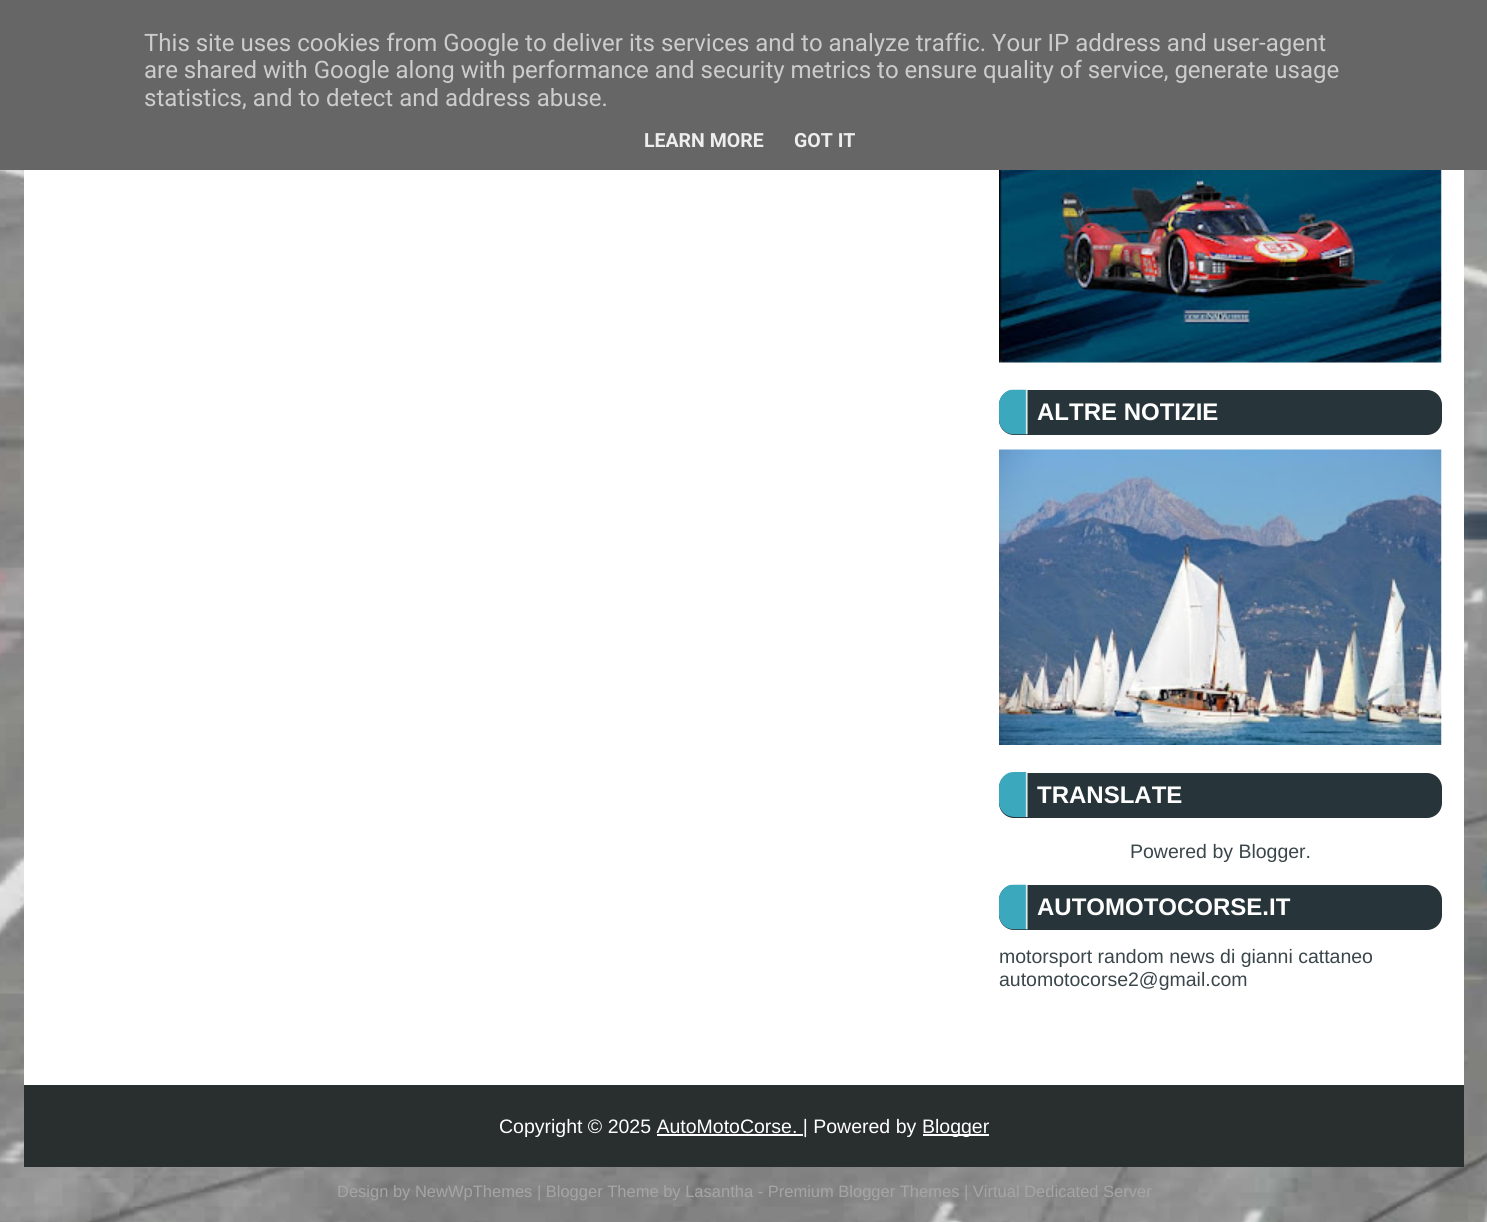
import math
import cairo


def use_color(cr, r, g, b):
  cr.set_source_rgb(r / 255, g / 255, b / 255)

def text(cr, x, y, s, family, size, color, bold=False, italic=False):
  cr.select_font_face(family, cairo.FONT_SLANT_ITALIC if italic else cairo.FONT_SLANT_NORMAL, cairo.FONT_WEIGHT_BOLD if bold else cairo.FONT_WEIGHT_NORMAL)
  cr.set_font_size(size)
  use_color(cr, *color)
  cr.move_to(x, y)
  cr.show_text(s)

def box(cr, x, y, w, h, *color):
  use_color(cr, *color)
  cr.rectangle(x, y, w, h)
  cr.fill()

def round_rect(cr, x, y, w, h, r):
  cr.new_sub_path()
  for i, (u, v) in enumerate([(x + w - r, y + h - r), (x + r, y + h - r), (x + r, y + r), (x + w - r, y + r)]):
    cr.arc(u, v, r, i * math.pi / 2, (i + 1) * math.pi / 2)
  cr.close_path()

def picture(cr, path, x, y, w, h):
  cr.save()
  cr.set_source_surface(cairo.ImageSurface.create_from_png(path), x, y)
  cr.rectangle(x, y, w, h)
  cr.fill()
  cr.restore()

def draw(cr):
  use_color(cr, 255, 255, 255)
  cr.paint()
  picture(cr, "img_01.png", 0, 170, 1487, 1052)
  box(cr, 0, 0, 1487, 170, 102, 102, 102)
  box(cr, 24, 170, 1440, 915, 255, 255, 255)
  picture(cr, "img_02.png", 999, 170, 443, 193)
  use_color(cr, 39, 53, 59)
  round_rect(cr, 999, 390, 443, 45, 15)
  cr.fill()
  picture(cr, "img_03.png", 999, 389, 29, 46)
  picture(cr, "img_04.png", 999, 449, 443, 296)
  round_rect(cr, 999, 773, 443, 45, 15)
  cr.fill()
  picture(cr, "img_05.png", 999, 772, 29, 45)
  round_rect(cr, 999, 885, 443, 45, 15)
  cr.fill()
  picture(cr, "img_03.png", 999, 884, 29, 46)
  box(cr, 24, 1085, 1440, 82, 41, 46, 47)
  box(cr, 923, 1134, 66, 2, 255, 255, 255)
  box(cr, 657, 1134, 146, 2, 255, 255, 255)
  text(cr, 144, 51, "This site uses cookies from Google to deliver its services and to analyze traffic. Your IP address and user-agent", "Roboto", 24, (204, 204, 204))
  text(cr, 144, 78, "are shared with Google along with performance and security metrics to ensure quality of service, generate usage", "Roboto", 24, (204, 204, 204))
  text(cr, 144, 106, "statistics, and to detect and address abuse.", "Roboto", 24, (204, 204, 204))
  text(cr, 644, 147, "LEARN MORE", "Roboto", 19.5, (238, 238, 238), bold=True)
  text(cr, 794, 147, "GOT IT", "Roboto", 19.5, (238, 238, 238), bold=True)
  text(cr, 1037, 420, "ALTRE NOTIZIE", "Liberation Sans", 24, (255, 255, 255), bold=True)
  text(cr, 1037, 803, "TRANSLATE", "Liberation Sans", 24, (255, 255, 255), bold=True)
  text(cr, 1130, 858, "Powered by Blogger.", "Liberation Sans", 19.5, (58, 70, 73))
  text(cr, 1037, 915, "AUTOMOTOCORSE.IT", "Liberation Sans", 24, (255, 255, 255), bold=True)
  text(cr, 999, 963, "motorsport random news di gianni cattaneo", "Liberation Sans", 19.5, (58, 70, 73))
  text(cr, 999, 986, "automotocorse2@gmail.com", "Liberation Sans", 19.5, (58, 70, 73))
  text(cr, 499, 1133, "Copyright © 2025 AutoMotoCorse. | Powered by", "Liberation Sans", 19.5, (255, 255, 255))
  text(cr, 922, 1133, "Blogger", "Liberation Sans", 19.5, (255, 255, 255))
  text(cr, 337, 1197, "Design by NewWpThemes | Blogger Theme by Lasantha - Premium Blogger Themes | Virtual Dedicated Server", "Liberation Sans", 16.5, (165, 165, 165))


surface = cairo.ImageSurface(cairo.FORMAT_RGB24, 1487, 1222)
cr = cairo.Context(surface)
options = cairo.FontOptions()
options.set_hint_metrics(cairo.HINT_METRICS_OFF)
options.set_hint_style(cairo.HINT_STYLE_NONE)
cr.set_font_options(options)
cr.set_miter_limit(4)
draw(cr)
surface.write_to_png("out.png")
